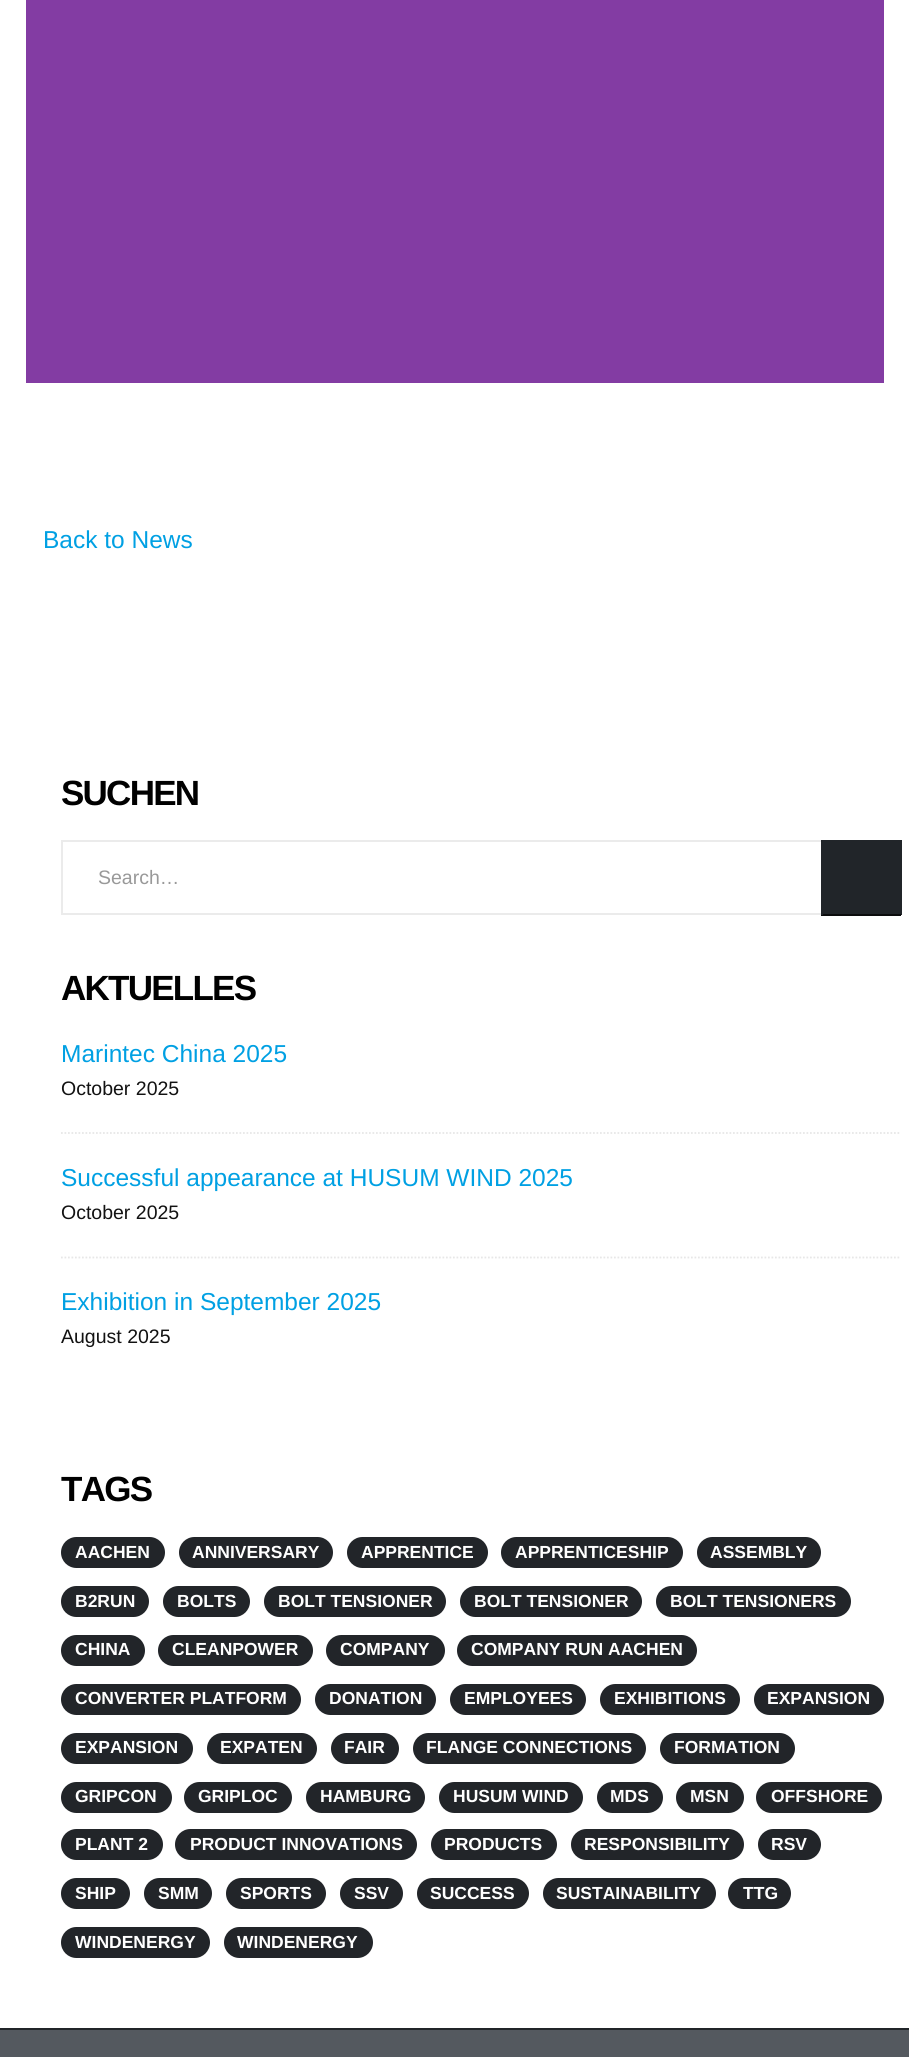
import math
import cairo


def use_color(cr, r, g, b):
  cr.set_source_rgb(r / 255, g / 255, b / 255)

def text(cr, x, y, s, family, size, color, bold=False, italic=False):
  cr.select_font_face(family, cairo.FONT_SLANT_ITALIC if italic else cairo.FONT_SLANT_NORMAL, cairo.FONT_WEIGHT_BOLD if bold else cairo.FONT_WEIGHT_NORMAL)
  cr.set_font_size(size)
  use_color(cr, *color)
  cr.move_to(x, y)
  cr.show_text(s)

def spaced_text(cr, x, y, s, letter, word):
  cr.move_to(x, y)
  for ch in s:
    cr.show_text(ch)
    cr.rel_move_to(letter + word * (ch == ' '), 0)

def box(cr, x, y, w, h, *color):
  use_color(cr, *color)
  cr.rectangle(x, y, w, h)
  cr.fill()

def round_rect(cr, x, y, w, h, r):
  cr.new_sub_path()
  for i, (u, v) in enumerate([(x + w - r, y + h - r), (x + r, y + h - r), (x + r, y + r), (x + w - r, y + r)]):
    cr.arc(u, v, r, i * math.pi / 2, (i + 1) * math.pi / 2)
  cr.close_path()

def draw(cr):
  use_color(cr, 255, 255, 255)
  cr.paint()
  box(cr, 26, 0, 858, 383, 131, 60, 163)
  cr.rectangle(62, 841, 760, 73)
  use_color(cr, 235, 235, 235)
  cr.stroke()
  box(cr, 823, 840, 77, 74, 33, 37, 41)
  box(cr, 900, 840, 2, 75, 33, 37, 41)
  box(cr, 821, 914, 80, 2, 11, 12, 13)
  box(cr, 821, 840, 2, 75, 33, 37, 41)
  cr.new_path()
  cr.move_to(61, 1133)
  cr.line_to(901, 1133)
  use_color(cr, 231, 231, 231)
  cr.set_line_width(1.8)
  cr.set_dash([1.75, 1.75])
  cr.stroke()
  cr.new_path()
  cr.move_to(61, 1257.5)
  cr.line_to(901, 1257.5)
  cr.stroke()
  use_color(cr, 34, 37, 41)
  round_rect(cr, 61, 1537, 104, 31, 15.5)
  cr.fill()
  round_rect(cr, 179, 1537, 154, 31, 15.5)
  cr.fill()
  round_rect(cr, 347, 1537, 141, 31, 15.5)
  cr.fill()
  round_rect(cr, 501, 1537, 182, 31, 15.5)
  cr.fill()
  round_rect(cr, 697, 1537, 124, 31, 15.5)
  cr.fill()
  round_rect(cr, 61, 1586, 88, 31, 15.5)
  cr.fill()
  round_rect(cr, 163, 1586, 87, 31, 15.5)
  cr.fill()
  round_rect(cr, 264, 1586, 182, 31, 15.5)
  cr.fill()
  round_rect(cr, 460, 1586, 182, 31, 15.5)
  cr.fill()
  round_rect(cr, 656, 1586, 195, 31, 15.5)
  cr.fill()
  round_rect(cr, 61, 1635, 84, 31, 15.5)
  cr.fill()
  round_rect(cr, 158, 1635, 155, 31, 15.5)
  cr.fill()
  round_rect(cr, 326, 1635, 119, 31, 15.5)
  cr.fill()
  round_rect(cr, 457, 1635, 240, 31, 15.5)
  cr.fill()
  round_rect(cr, 61, 1684, 240, 31, 15.5)
  cr.fill()
  round_rect(cr, 315, 1684, 121, 31, 15.5)
  cr.fill()
  round_rect(cr, 450, 1684, 136, 31, 15.5)
  cr.fill()
  round_rect(cr, 600, 1684, 140, 31, 15.5)
  cr.fill()
  round_rect(cr, 754, 1684, 130, 31, 15.5)
  cr.fill()
  round_rect(cr, 61, 1733, 132, 31, 15.5)
  cr.fill()
  round_rect(cr, 207, 1733, 110, 31, 15.5)
  cr.fill()
  round_rect(cr, 331, 1733, 68, 31, 15.5)
  cr.fill()
  round_rect(cr, 413, 1733, 233, 31, 15.5)
  cr.fill()
  round_rect(cr, 660, 1733, 135, 31, 15.5)
  cr.fill()
  round_rect(cr, 61, 1782, 111, 31, 15.5)
  cr.fill()
  round_rect(cr, 184, 1782, 108, 31, 15.5)
  cr.fill()
  round_rect(cr, 306, 1782, 119, 31, 15.5)
  cr.fill()
  round_rect(cr, 439, 1782, 144, 31, 15.5)
  cr.fill()
  round_rect(cr, 597, 1782, 66, 31, 15.5)
  cr.fill()
  round_rect(cr, 676, 1782, 68, 31, 15.5)
  cr.fill()
  round_rect(cr, 756, 1782, 126, 31, 15.5)
  cr.fill()
  round_rect(cr, 61, 1829, 102, 31, 15.5)
  cr.fill()
  round_rect(cr, 175, 1829, 242, 31, 15.5)
  cr.fill()
  round_rect(cr, 431, 1829, 126, 31, 15.5)
  cr.fill()
  round_rect(cr, 571, 1829, 173, 31, 15.5)
  cr.fill()
  round_rect(cr, 758, 1829, 63, 31, 15.5)
  cr.fill()
  round_rect(cr, 61, 1878, 69, 31, 15.5)
  cr.fill()
  round_rect(cr, 144, 1878, 68, 31, 15.5)
  cr.fill()
  round_rect(cr, 226, 1878, 100, 31, 15.5)
  cr.fill()
  round_rect(cr, 340, 1878, 63, 31, 15.5)
  cr.fill()
  round_rect(cr, 417, 1878, 112, 31, 15.5)
  cr.fill()
  round_rect(cr, 543, 1878, 173, 31, 15.5)
  cr.fill()
  round_rect(cr, 728, 1878, 63, 31, 15.5)
  cr.fill()
  round_rect(cr, 61, 1927, 149, 31, 15.5)
  cr.fill()
  round_rect(cr, 224, 1927, 149, 31, 15.5)
  cr.fill()
  box(cr, 0, 2028, 909, 2, 33, 37, 41)
  box(cr, 0, 2030, 909, 27, 84, 89, 95)
  text(cr, 43, 548, "Back to News", "Liberation Sans", 24.5, (0, 160, 227))
  cr.select_font_face("Liberation Sans", cairo.FONT_SLANT_NORMAL, cairo.FONT_WEIGHT_BOLD)
  cr.set_font_size(35)
  use_color(cr, 0, 0, 0)
  spaced_text(cr, 61, 805, "SUCHEN", -1.75, 0)
  text(cr, 98, 884, "Search…", "Liberation Sans", 19.5, (153, 153, 153))
  cr.select_font_face("Liberation Sans", cairo.FONT_SLANT_NORMAL, cairo.FONT_WEIGHT_BOLD)
  cr.set_font_size(35)
  use_color(cr, 0, 0, 0)
  spaced_text(cr, 61, 1000, "AKTUELLES", -1.75, 0)
  text(cr, 61, 1062, "Marintec China 2025", "Liberation Sans", 24.5, (0, 160, 227))
  text(cr, 61, 1095, "October 2025", "Liberation Sans", 19.5, (18, 18, 18))
  text(cr, 61, 1186, "Successful appearance at HUSUM WIND 2025", "Liberation Sans", 24.5, (0, 160, 227))
  text(cr, 61, 1219, "October 2025", "Liberation Sans", 19.5, (18, 18, 18))
  text(cr, 61, 1310, "Exhibition in September 2025", "Liberation Sans", 24.5, (0, 160, 227))
  text(cr, 61, 1343, "August 2025", "Liberation Sans", 19.5, (18, 18, 18))
  cr.select_font_face("Liberation Sans", cairo.FONT_SLANT_NORMAL, cairo.FONT_WEIGHT_BOLD)
  cr.set_font_size(35)
  use_color(cr, 0, 0, 0)
  spaced_text(cr, 61, 1501, "TAGS", -1.75, 0)
  text(cr, 75, 1558, "AACHEN", "Liberation Sans", 17.5, (255, 255, 255), bold=True)
  text(cr, 192, 1558, "ANNIVERSARY", "Liberation Sans", 17.5, (255, 255, 255), bold=True)
  text(cr, 361, 1558, "APPRENTICE", "Liberation Sans", 17.5, (255, 255, 255), bold=True)
  text(cr, 515, 1558, "APPRENTICESHIP", "Liberation Sans", 17.5, (255, 255, 255), bold=True)
  text(cr, 710, 1558, "ASSEMBLY", "Liberation Sans", 17.5, (255, 255, 255), bold=True)
  text(cr, 75, 1607, "B2RUN", "Liberation Sans", 17.5, (255, 255, 255), bold=True)
  text(cr, 177, 1607, "BOLTS", "Liberation Sans", 17.5, (255, 255, 255), bold=True)
  text(cr, 278, 1607, "BOLT TENSIONER", "Liberation Sans", 17.5, (255, 255, 255), bold=True)
  text(cr, 474, 1607, "BOLT TENSIONER", "Liberation Sans", 17.5, (255, 255, 255), bold=True)
  text(cr, 670, 1607, "BOLT TENSIONERS", "Liberation Sans", 17.5, (255, 255, 255), bold=True)
  text(cr, 75, 1655, "CHINA", "Liberation Sans", 17.5, (255, 255, 255), bold=True)
  text(cr, 172, 1655, "CLEANPOWER", "Liberation Sans", 17.5, (255, 255, 255), bold=True)
  text(cr, 340, 1655, "COMPANY", "Liberation Sans", 17.5, (255, 255, 255), bold=True)
  text(cr, 471, 1655, "COMPANY RUN AACHEN", "Liberation Sans", 17.5, (255, 255, 255), bold=True)
  text(cr, 75, 1704, "CONVERTER PLATFORM", "Liberation Sans", 17.5, (255, 255, 255), bold=True)
  text(cr, 329, 1704, "DONATION", "Liberation Sans", 17.5, (255, 255, 255), bold=True)
  text(cr, 464, 1704, "EMPLOYEES", "Liberation Sans", 17.5, (255, 255, 255), bold=True)
  text(cr, 614, 1704, "EXHIBITIONS", "Liberation Sans", 17.5, (255, 255, 255), bold=True)
  text(cr, 767, 1704, "EXPANSION", "Liberation Sans", 17.5, (255, 255, 255), bold=True)
  text(cr, 75, 1753, "EXPANSION", "Liberation Sans", 17.5, (255, 255, 255), bold=True)
  text(cr, 220, 1753, "EXPATEN", "Liberation Sans", 17.5, (255, 255, 255), bold=True)
  text(cr, 344, 1753, "FAIR", "Liberation Sans", 17.5, (255, 255, 255), bold=True)
  text(cr, 426, 1753, "FLANGE CONNECTIONS", "Liberation Sans", 17.5, (255, 255, 255), bold=True)
  text(cr, 674, 1753, "FORMATION", "Liberation Sans", 17.5, (255, 255, 255), bold=True)
  text(cr, 75, 1802, "GRIPCON", "Liberation Sans", 17.5, (255, 255, 255), bold=True)
  text(cr, 198, 1802, "GRIPLOC", "Liberation Sans", 17.5, (255, 255, 255), bold=True)
  text(cr, 320, 1802, "HAMBURG", "Liberation Sans", 17.5, (255, 255, 255), bold=True)
  text(cr, 453, 1802, "HUSUM WIND", "Liberation Sans", 17.5, (255, 255, 255), bold=True)
  text(cr, 610, 1802, "MDS", "Liberation Sans", 17.5, (255, 255, 255), bold=True)
  text(cr, 690, 1802, "MSN", "Liberation Sans", 17.5, (255, 255, 255), bold=True)
  text(cr, 771, 1802, "OFFSHORE", "Liberation Sans", 17.5, (255, 255, 255), bold=True)
  text(cr, 75, 1850, "PLANT 2", "Liberation Sans", 17.5, (255, 255, 255), bold=True)
  text(cr, 190, 1850, "PRODUCT INNOVATIONS", "Liberation Sans", 17.5, (255, 255, 255), bold=True)
  text(cr, 444, 1850, "PRODUCTS", "Liberation Sans", 17.5, (255, 255, 255), bold=True)
  text(cr, 584, 1850, "RESPONSIBILITY", "Liberation Sans", 17.5, (255, 255, 255), bold=True)
  text(cr, 771, 1850, "RSV", "Liberation Sans", 17.5, (255, 255, 255), bold=True)
  text(cr, 75, 1899, "SHIP", "Liberation Sans", 17.5, (255, 255, 255), bold=True)
  text(cr, 158, 1899, "SMM", "Liberation Sans", 17.5, (255, 255, 255), bold=True)
  text(cr, 240, 1899, "SPORTS", "Liberation Sans", 17.5, (255, 255, 255), bold=True)
  text(cr, 354, 1899, "SSV", "Liberation Sans", 17.5, (255, 255, 255), bold=True)
  text(cr, 430, 1899, "SUCCESS", "Liberation Sans", 17.5, (255, 255, 255), bold=True)
  text(cr, 556, 1899, "SUSTAINABILITY", "Liberation Sans", 17.5, (255, 255, 255), bold=True)
  text(cr, 743, 1899, "TTG", "Liberation Sans", 17.5, (255, 255, 255), bold=True)
  text(cr, 75, 1948, "WINDENERGY", "Liberation Sans", 17.5, (255, 255, 255), bold=True)
  text(cr, 237, 1948, "WINDENERGY", "Liberation Sans", 17.5, (255, 255, 255), bold=True)


surface = cairo.ImageSurface(cairo.FORMAT_RGB24, 909, 2057)
cr = cairo.Context(surface)
options = cairo.FontOptions()
options.set_hint_metrics(cairo.HINT_METRICS_OFF)
options.set_hint_style(cairo.HINT_STYLE_NONE)
cr.set_font_options(options)
cr.set_miter_limit(4)
draw(cr)
surface.write_to_png("out.png")
